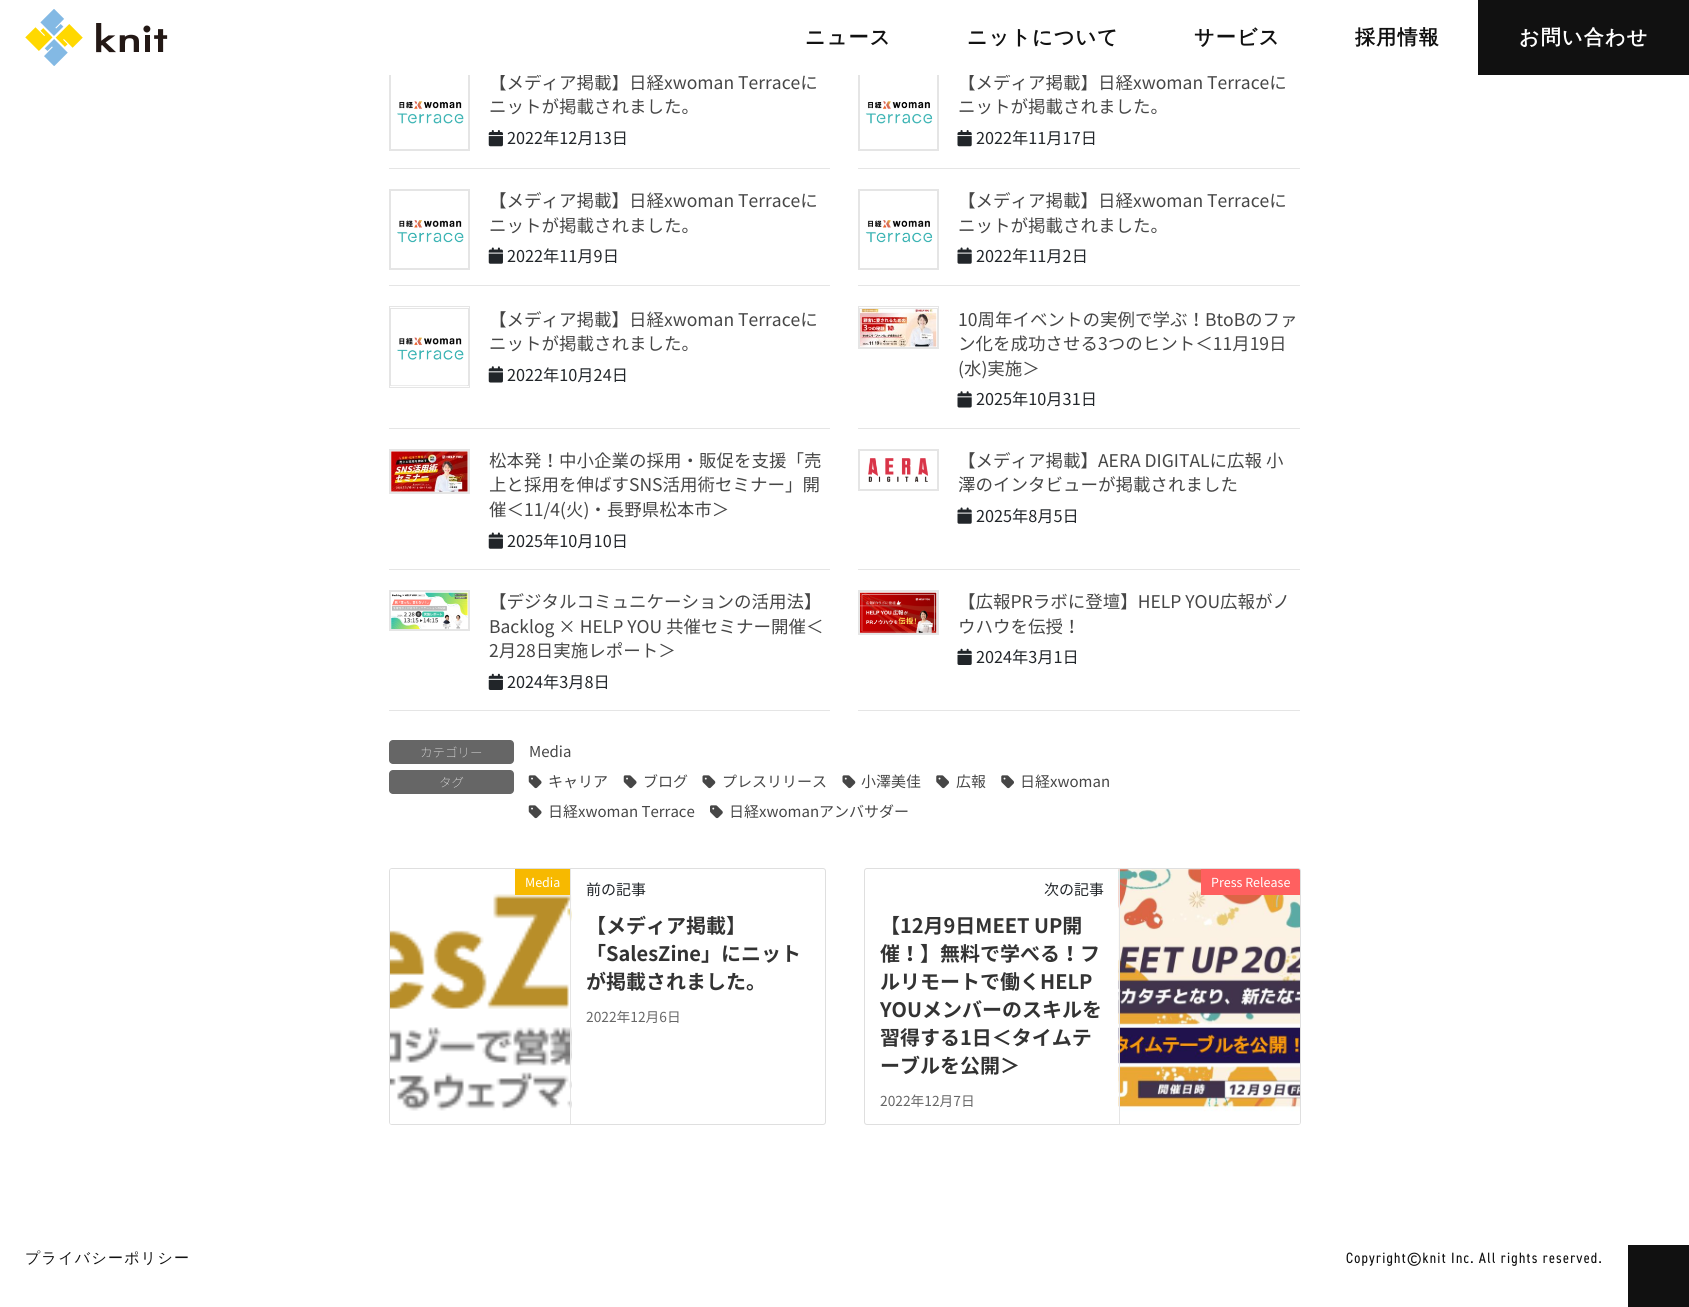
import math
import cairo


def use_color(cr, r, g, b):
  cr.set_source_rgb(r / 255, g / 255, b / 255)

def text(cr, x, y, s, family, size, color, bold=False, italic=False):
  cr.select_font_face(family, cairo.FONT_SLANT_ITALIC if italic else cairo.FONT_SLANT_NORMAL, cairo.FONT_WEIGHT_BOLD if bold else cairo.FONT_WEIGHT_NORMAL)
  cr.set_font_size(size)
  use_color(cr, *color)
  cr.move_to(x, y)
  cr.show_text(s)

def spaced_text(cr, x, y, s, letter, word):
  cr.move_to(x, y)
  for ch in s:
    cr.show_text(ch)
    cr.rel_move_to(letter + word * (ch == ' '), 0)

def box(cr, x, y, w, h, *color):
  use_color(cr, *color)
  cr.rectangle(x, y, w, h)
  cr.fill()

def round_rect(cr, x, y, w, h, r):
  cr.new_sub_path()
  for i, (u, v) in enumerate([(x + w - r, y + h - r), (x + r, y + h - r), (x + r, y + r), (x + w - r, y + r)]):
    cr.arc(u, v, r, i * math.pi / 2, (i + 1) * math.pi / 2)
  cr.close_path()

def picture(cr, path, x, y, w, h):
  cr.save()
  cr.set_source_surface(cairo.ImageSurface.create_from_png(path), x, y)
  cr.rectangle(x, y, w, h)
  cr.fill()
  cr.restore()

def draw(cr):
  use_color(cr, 255, 255, 255)
  cr.paint()
  picture(cr, "img_01.png", 25, 9, 143, 57)
  box(cr, 1478, 0, 211, 75, 17, 17, 17)
  box(cr, 389, 168, 441, 1, 229, 229, 229)
  cr.rectangle(389.5, 70.5, 80, 80)
  cr.set_line_width(1)
  cr.stroke()
  cr.rectangle(390.5, 71.5, 78, 78)
  cr.stroke()
  picture(cr, "img_02.png", 397, 101, 67, 23)
  picture(cr, "img_03.png", 488, 130, 15, 17)
  box(cr, 858, 168, 442, 1, 229, 229, 229)
  cr.rectangle(858.5, 70.5, 80, 80)
  cr.stroke()
  cr.rectangle(859.5, 71.5, 78, 78)
  cr.stroke()
  picture(cr, "img_04.png", 865, 101, 68, 23)
  picture(cr, "img_05.png", 957, 130, 15, 17)
  box(cr, 389, 285, 441, 1, 229, 229, 229)
  cr.rectangle(389.5, 189.5, 80, 80)
  cr.stroke()
  cr.rectangle(390.5, 190.5, 78, 78)
  cr.stroke()
  picture(cr, "img_06.png", 397, 220, 67, 23)
  picture(cr, "img_07.png", 488, 247, 15, 17)
  box(cr, 858, 285, 442, 1, 229, 229, 229)
  cr.rectangle(858.5, 189.5, 80, 80)
  cr.stroke()
  cr.rectangle(859.5, 190.5, 78, 78)
  cr.stroke()
  picture(cr, "img_08.png", 865, 220, 68, 23)
  picture(cr, "img_09.png", 957, 247, 15, 17)
  box(cr, 389, 428, 441, 1, 229, 229, 229)
  cr.rectangle(389.5, 306.5, 80, 81)
  cr.stroke()
  cr.rectangle(390.5, 308.5, 78, 77)
  cr.stroke()
  picture(cr, "img_10.png", 391, 337, 76, 49)
  picture(cr, "img_11.png", 488, 366, 15, 17)
  box(cr, 858, 428, 442, 1, 229, 229, 229)
  cr.rectangle(858.5, 306.5, 80, 42)
  cr.stroke()
  cr.rectangle(859.5, 308.5, 78, 39)
  cr.stroke()
  picture(cr, "img_12.png", 860, 309, 77, 38)
  picture(cr, "img_13.png", 957, 391, 15, 17)
  box(cr, 389, 569, 441, 1, 229, 229, 229)
  cr.rectangle(389.5, 449.5, 80, 44)
  cr.stroke()
  cr.rectangle(390.5, 450.5, 78, 42)
  cr.stroke()
  picture(cr, "img_14.png", 391, 451, 77, 41)
  picture(cr, "img_07.png", 488, 532, 15, 17)
  box(cr, 858, 569, 442, 1, 229, 229, 229)
  cr.rectangle(858.5, 449.5, 80, 41)
  cr.stroke()
  cr.rectangle(859.5, 450.5, 78, 39)
  cr.stroke()
  picture(cr, "img_15.png", 868, 458, 61, 24)
  picture(cr, "img_09.png", 957, 507, 15, 17)
  box(cr, 389, 710, 441, 1, 229, 229, 229)
  cr.rectangle(389.5, 590.5, 80, 40)
  cr.stroke()
  cr.rectangle(390.5, 591.5, 78, 38)
  cr.stroke()
  picture(cr, "img_16.png", 391, 592, 77, 37)
  picture(cr, "img_17.png", 488, 673, 15, 17)
  box(cr, 858, 710, 442, 1, 229, 229, 229)
  cr.rectangle(858.5, 590.5, 80, 44)
  cr.stroke()
  cr.rectangle(859.5, 591.5, 78, 42)
  cr.stroke()
  picture(cr, "img_18.png", 860, 592, 77, 41)
  picture(cr, "img_19.png", 957, 648, 15, 17)
  use_color(cr, 102, 102, 102)
  round_rect(cr, 389, 740, 125, 24, 4)
  cr.fill()
  round_rect(cr, 389, 770, 125, 24, 4)
  cr.fill()
  picture(cr, "img_20.png", 528, 775, 14, 14)
  picture(cr, "img_20.png", 623, 775, 14, 14)
  picture(cr, "img_21.png", 702, 775, 14, 14)
  picture(cr, "img_21.png", 842, 775, 14, 14)
  picture(cr, "img_22.png", 936, 775, 13, 14)
  picture(cr, "img_22.png", 1001, 775, 13, 14)
  picture(cr, "img_20.png", 528, 805, 14, 14)
  picture(cr, "img_23.png", 710, 805, 13, 14)
  round_rect(cr, 389.5, 868.5, 436, 256, 2.5)
  use_color(cr, 223, 223, 223)
  cr.stroke()
  picture(cr, "img_24.png", 390, 869, 182, 255)
  box(cr, 570, 869, 1, 255, 229, 229, 229)
  box(cr, 515, 869, 55, 26, 247, 185, 0)
  round_rect(cr, 864.5, 868.5, 436, 256, 2.5)
  use_color(cr, 223, 223, 223)
  cr.stroke()
  picture(cr, "img_25.png", 1118, 869, 182, 255)
  box(cr, 1119, 869, 1, 255, 229, 229, 229)
  use_color(cr, 255, 96, 96)
  cr.new_path()
  cr.move_to(1201, 869)
  cr.line_to(1298, 869)
  cr.curve_to(1299, 869, 1300, 870, 1300, 871)
  cr.line_to(1300, 895)
  cr.line_to(1201, 895)
  cr.close_path()
  cr.fill()
  box(cr, 1628, 1245, 61, 62, 17, 17, 17)
  cr.select_font_face("WenQuanYi Zen Hei", cairo.FONT_SLANT_NORMAL, cairo.FONT_WEIGHT_BOLD)
  cr.set_font_size(20)
  spaced_text(cr, 805, 44, "ニュース", 1.25, 0)
  spaced_text(cr, 967, 44, "ニットについて", 1.25, 0)
  spaced_text(cr, 1194, 44, "サービス", 1.25, 0)
  spaced_text(cr, 1355, 44, "採用情報", 1.25, 0)
  use_color(cr, 255, 255, 255)
  spaced_text(cr, 1519, 44, "お問い合わせ", 1.25, 0)
  text(cr, 489, 89, "【メディア掲載】日経xwoman Terraceに", "Noto Sans JP", 17.5, (70, 70, 70))
  text(cr, 489, 113, "ニットが掲載されました。", "Noto Sans JP", 17.5, (70, 70, 70))
  text(cr, 507, 144, "2022年12月13日", "Noto Sans JP", 16.25, (33, 37, 41))
  text(cr, 958, 89, "【メディア掲載】日経xwoman Terraceに", "Noto Sans JP", 17.5, (70, 70, 70))
  box(cr, 389, 70, 731, 5, 255, 255, 255)
  text(cr, 958, 113, "ニットが掲載されました。", "Noto Sans JP", 17.5, (70, 70, 70))
  text(cr, 976, 144, "2022年11月17日", "Noto Sans JP", 16.25, (33, 37, 41))
  text(cr, 489, 207, "【メディア掲載】日経xwoman Terraceに", "Noto Sans JP", 17.5, (70, 70, 70))
  text(cr, 489, 232, "ニットが掲載されました。", "Noto Sans JP", 17.5, (70, 70, 70))
  text(cr, 507, 262, "2022年11月9日", "Noto Sans JP", 16.25, (33, 37, 41))
  text(cr, 958, 207, "【メディア掲載】日経xwoman Terraceに", "Noto Sans JP", 17.5, (70, 70, 70))
  text(cr, 958, 232, "ニットが掲載されました。", "Noto Sans JP", 17.5, (70, 70, 70))
  text(cr, 976, 262, "2022年11月2日", "Noto Sans JP", 16.25, (33, 37, 41))
  text(cr, 489, 326, "【メディア掲載】日経xwoman Terraceに", "Noto Sans JP", 17.5, (70, 70, 70))
  text(cr, 489, 350, "ニットが掲載されました。", "Noto Sans JP", 17.5, (70, 70, 70))
  text(cr, 507, 381, "2022年10月24日", "Noto Sans JP", 16.25, (33, 37, 41))
  text(cr, 958, 326, "10周年イベントの実例で学ぶ！BtoBのファ", "Noto Sans JP", 17.5, (70, 70, 70))
  text(cr, 958, 350, "ン化を成功させる3つのヒント＜11月19日", "Noto Sans JP", 17.5, (70, 70, 70))
  text(cr, 958, 375, "(水)実施＞", "Noto Sans JP", 17.5, (70, 70, 70))
  text(cr, 976, 405, "2025年10月31日", "Noto Sans JP", 16.25, (33, 37, 41))
  text(cr, 489, 467, "松本発！中小企業の採用・販促を支援「売", "Noto Sans JP", 17.5, (70, 70, 70))
  text(cr, 489, 491, "上と採用を伸ばすSNS活用術セミナー」開", "Noto Sans JP", 17.5, (70, 70, 70))
  text(cr, 489, 516, "催＜11/4(火)・長野県松本市＞", "Noto Sans JP", 17.5, (70, 70, 70))
  text(cr, 507, 547, "2025年10月10日", "Noto Sans JP", 16.25, (33, 37, 41))
  text(cr, 958, 467, "【メディア掲載】AERA DIGITALに広報 小", "Noto Sans JP", 17.5, (70, 70, 70))
  text(cr, 958, 491, "澤のインタビューが掲載されました", "Noto Sans JP", 17.5, (70, 70, 70))
  text(cr, 976, 522, "2025年8月5日", "Noto Sans JP", 16.25, (33, 37, 41))
  text(cr, 489, 608, "【デジタルコミュニケーションの活用法】", "Noto Sans JP", 17.5, (70, 70, 70))
  text(cr, 489, 633, "Backlog × HELP YOU 共催セミナー開催＜", "Noto Sans JP", 17.5, (70, 70, 70))
  text(cr, 489, 657, "2月28日実施レポート＞", "Noto Sans JP", 17.5, (70, 70, 70))
  text(cr, 507, 688, "2024年3月8日", "Noto Sans JP", 16.25, (33, 37, 41))
  text(cr, 958, 608, "【広報PRラボに登壇】HELP YOU広報がノ", "Noto Sans JP", 17.5, (70, 70, 70))
  text(cr, 958, 633, "ウハウを伝授！", "Noto Sans JP", 17.5, (70, 70, 70))
  text(cr, 976, 663, "2024年3月1日", "Noto Sans JP", 16.25, (33, 37, 41))
  text(cr, 420, 757, "カテゴリー", "Noto Sans JP Thin", 12.5, (255, 255, 255))
  text(cr, 529, 757, "Media", "Noto Sans JP", 15, (70, 70, 70))
  text(cr, 439, 787, "タグ", "Noto Sans JP Thin", 12.5, (255, 255, 255))
  text(cr, 548, 787, "キャリア", "Noto Sans JP", 15, (70, 70, 70))
  text(cr, 643, 787, "ブログ", "Noto Sans JP", 15, (70, 70, 70))
  text(cr, 722, 787, "プレスリリース", "Noto Sans JP", 15, (70, 70, 70))
  text(cr, 861, 787, "小澤美佳", "Noto Sans JP", 15, (70, 70, 70))
  text(cr, 956, 787, "広報", "Noto Sans JP", 15, (70, 70, 70))
  text(cr, 1020, 787, "日経xwoman", "Noto Sans JP", 15, (70, 70, 70))
  text(cr, 548, 817, "日経xwoman Terrace", "Noto Sans JP", 15, (70, 70, 70))
  text(cr, 729, 817, "日経xwomanアンバサダー", "Noto Sans JP", 15, (70, 70, 70))
  text(cr, 525, 887, "Media", "Noto Sans JP", 12.5, (255, 255, 255))
  text(cr, 586, 895, "前の記事", "Noto Sans JP", 15, (33, 37, 41))
  text(cr, 586, 933, "【メディア掲載】", "Noto Sans JP", 20, (51, 51, 51), bold=True)
  text(cr, 586, 961, "「SalesZine」にニット", "Noto Sans JP", 20, (51, 51, 51), bold=True)
  text(cr, 586, 989, "が掲載されました。", "Noto Sans JP", 20, (51, 51, 51), bold=True)
  text(cr, 586, 1022, "2022年12月6日", "Noto Sans JP", 13.75, (102, 102, 102))
  text(cr, 1044, 895, "次の記事", "Noto Sans JP", 15, (33, 37, 41))
  text(cr, 880, 933, "【12月9日MEET UP開", "Noto Sans JP", 20, (51, 51, 51), bold=True)
  text(cr, 880, 961, "催！】無料で学べる！フ", "Noto Sans JP", 20, (51, 51, 51), bold=True)
  text(cr, 880, 989, "ルリモートで働くHELP", "Noto Sans JP", 20, (51, 51, 51), bold=True)
  text(cr, 880, 1017, "YOUメンバーのスキルを", "Noto Sans JP", 20, (51, 51, 51), bold=True)
  text(cr, 880, 1045, "習得する1日＜タイムテ", "Noto Sans JP", 20, (51, 51, 51), bold=True)
  text(cr, 880, 1073, "ーブルを公開＞", "Noto Sans JP", 20, (51, 51, 51), bold=True)
  text(cr, 880, 1106, "2022年12月7日", "Noto Sans JP", 13.75, (102, 102, 102))
  text(cr, 1211, 887, "Press Release", "Noto Sans JP", 12.5, (255, 255, 255))
  cr.select_font_face("WenQuanYi Zen Hei Medium")
  cr.set_font_size(15)
  use_color(cr, 17, 17, 17)
  spaced_text(cr, 25, 1263, "プライバシーポリシー", 1.25, 0)
  cr.select_font_face("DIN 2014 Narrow")
  spaced_text(cr, 1346, 1263, "Copyright©knit Inc. All rights reserved.", 1.25, 0)


surface = cairo.ImageSurface(cairo.FORMAT_RGB24, 1689, 1307)
cr = cairo.Context(surface)
options = cairo.FontOptions()
options.set_hint_metrics(cairo.HINT_METRICS_OFF)
options.set_hint_style(cairo.HINT_STYLE_NONE)
cr.set_font_options(options)
cr.set_miter_limit(4)
draw(cr)
surface.write_to_png("out.png")
